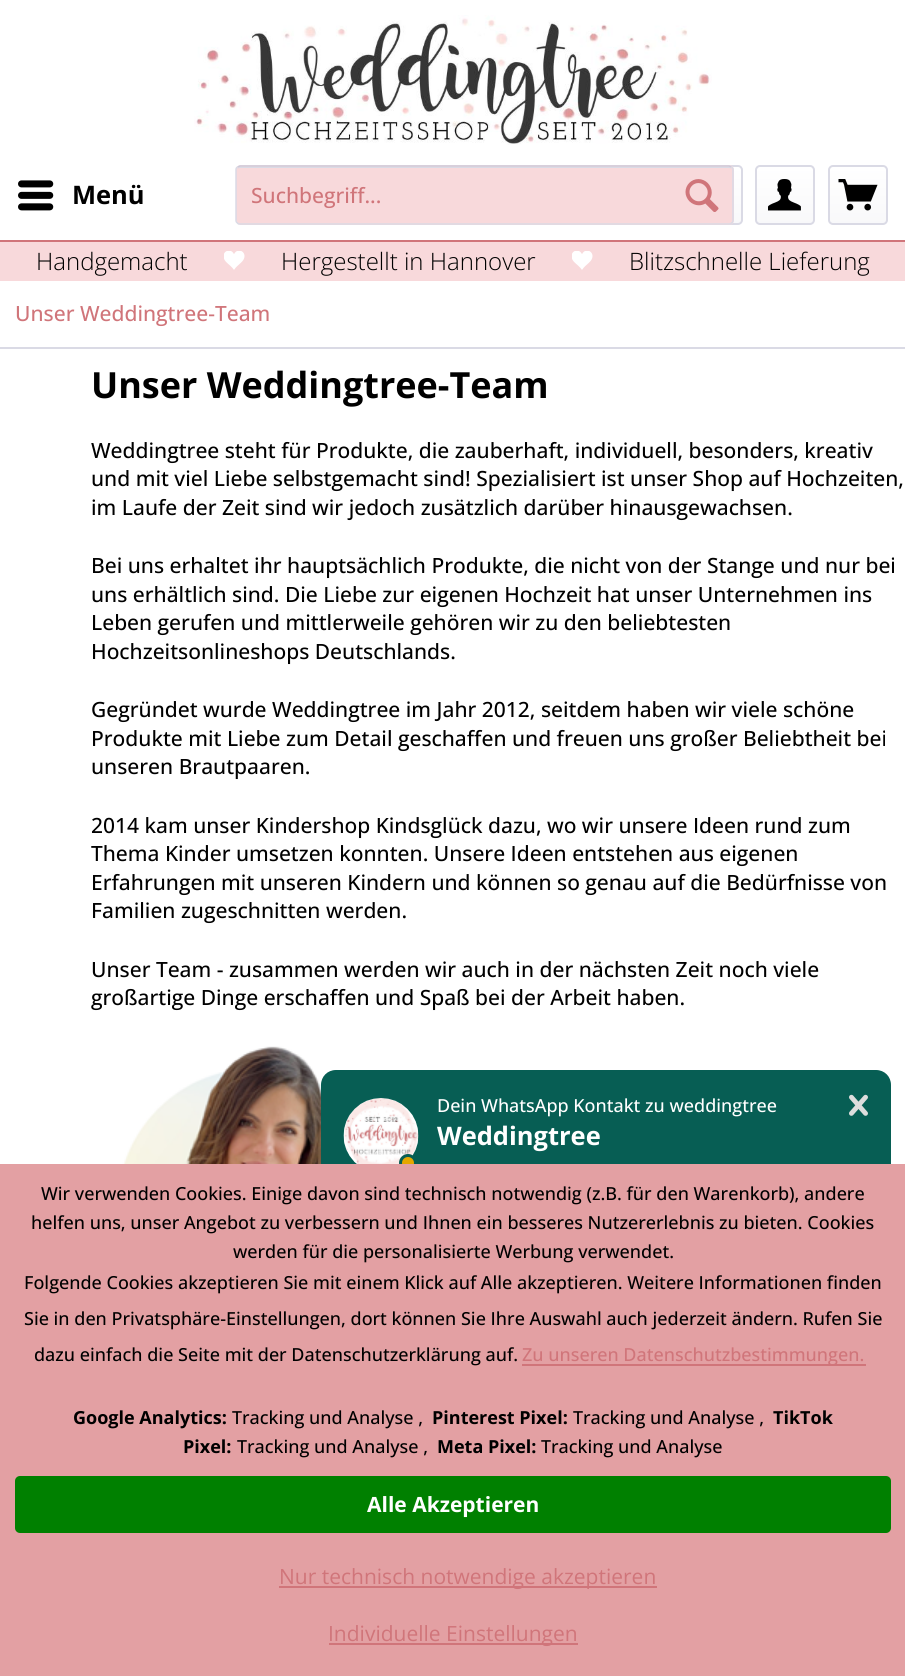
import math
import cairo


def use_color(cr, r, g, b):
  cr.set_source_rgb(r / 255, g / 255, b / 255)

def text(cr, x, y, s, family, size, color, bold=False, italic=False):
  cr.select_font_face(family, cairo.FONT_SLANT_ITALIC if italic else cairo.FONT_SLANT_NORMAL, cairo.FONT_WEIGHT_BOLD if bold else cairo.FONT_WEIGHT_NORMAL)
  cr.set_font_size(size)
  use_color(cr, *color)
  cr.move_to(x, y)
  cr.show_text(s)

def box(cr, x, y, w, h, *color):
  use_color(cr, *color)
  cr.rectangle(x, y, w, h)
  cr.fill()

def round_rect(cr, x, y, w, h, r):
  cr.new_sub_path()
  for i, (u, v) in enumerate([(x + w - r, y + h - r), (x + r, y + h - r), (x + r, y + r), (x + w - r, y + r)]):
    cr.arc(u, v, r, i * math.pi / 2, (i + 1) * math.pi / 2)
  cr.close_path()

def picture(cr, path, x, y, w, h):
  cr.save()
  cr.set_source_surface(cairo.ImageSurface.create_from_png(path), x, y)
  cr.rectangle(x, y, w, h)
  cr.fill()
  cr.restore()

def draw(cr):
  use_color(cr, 255, 255, 255)
  cr.paint()
  box(cr, 0, 240, 905, 2, 208, 117, 122)
  picture(cr, "img_01.png", 194, 15, 518, 130)
  picture(cr, "img_02.png", 18, 180, 36, 31)
  gradient = cairo.LinearGradient(713, 167, 713, 224)
  gradient.add_color_stop_rgba(0, 1, 1, 1, 1)
  gradient.add_color_stop_rgba(1, 0.973, 0.973, 0.98, 1)
  cr.set_source(gradient)
  round_rect(cr, 684, 167, 57, 57, 3)
  cr.fill()
  round_rect(cr, 684, 166, 58, 58, 4)
  use_color(cr, 218, 218, 229)
  cr.stroke()
  use_color(cr, 248, 217, 219)
  round_rect(cr, 236, 165, 498, 60, 5)
  cr.fill()
  use_color(cr, 218, 218, 229)
  cr.new_path()
  cr.move_to(240, 168)
  cr.line_to(729, 168)
  cr.curve_to(731, 168, 732, 169, 732, 171)
  cr.curve_to(732, 169, 731, 167, 729, 167)
  cr.line_to(240, 167)
  cr.curve_to(238, 167, 237, 169, 237, 171)
  cr.curve_to(237, 169, 238, 168, 240, 168)
  cr.close_path()
  cr.fill()
  cr.new_path()
  cr.move_to(237.5, 167)
  cr.line_to(240, 166)
  cr.line_to(729, 166)
  cr.line_to(731.5, 167)
  use_color(cr, 203, 203, 219)
  cr.set_line_width(1.5)
  cr.stroke()
  cr.new_path()
  cr.move_to(731.5, 167)
  cr.curve_to(732.5, 167.5, 733, 168.5, 733, 169.5)
  cr.line_to(733, 220.5)
  cr.curve_to(733, 221.5, 732.5, 222.5, 731.5, 223)
  cr.curve_to(731, 224, 730, 224, 729, 224)
  cr.line_to(240, 224)
  cr.curve_to(239, 224, 238, 224, 237.5, 223)
  cr.curve_to(236.5, 222.5, 236, 221.5, 236, 220.5)
  cr.line_to(236, 169.5)
  cr.curve_to(236, 168.5, 236.5, 167.5, 237.5, 167)
  use_color(cr, 218, 218, 229)
  cr.stroke()
  picture(cr, "img_03.png", 685, 179, 34, 33)
  gradient = cairo.LinearGradient(785, 167, 785, 224)
  gradient.add_color_stop_rgba(0, 1, 1, 1, 1)
  gradient.add_color_stop_rgba(1, 0.973, 0.973, 0.98, 1)
  cr.set_source(gradient)
  round_rect(cr, 756, 167, 57, 57, 3)
  cr.fill()
  round_rect(cr, 756, 166, 58, 58, 4)
  use_color(cr, 218, 218, 229)
  cr.set_line_width(2)
  cr.stroke()
  picture(cr, "img_04.png", 768, 179, 33, 32)
  gradient = cairo.LinearGradient(858, 167, 858, 224)
  gradient.add_color_stop_rgba(0, 1, 1, 1, 1)
  gradient.add_color_stop_rgba(1, 0.973, 0.973, 0.98, 1)
  cr.set_source(gradient)
  round_rect(cr, 830, 167, 57, 57, 3)
  cr.fill()
  round_rect(cr, 829, 166, 58, 58, 4)
  use_color(cr, 218, 218, 229)
  cr.stroke()
  picture(cr, "img_05.png", 838, 179, 40, 32)
  box(cr, 0, 242, 905, 39, 248, 217, 219)
  picture(cr, "img_06.png", 224, 251, 21, 19)
  picture(cr, "img_06.png", 572, 251, 21, 19)
  box(cr, 0, 347, 905, 2, 218, 218, 229)
  picture(cr, "img_07.png", 117, 1046, 278, 118)
  use_color(cr, 7, 94, 84)
  cr.new_path()
  cr.move_to(336, 1070)
  cr.line_to(876, 1070)
  cr.curve_to(884.5, 1070, 891, 1076.5, 891, 1085)
  cr.line_to(891, 1200)
  cr.line_to(321, 1200)
  cr.line_to(321, 1085)
  cr.curve_to(321, 1076.5, 327.5, 1070, 336, 1070)
  cr.close_path()
  cr.fill()
  picture(cr, "img_08.png", 343, 1098, 76, 66)
  use_color(cr, 229, 167, 0)
  cr.arc(408, 1163, 7.5, 0, 2 * math.pi)
  cr.fill_preserve()
  use_color(cr, 7, 94, 84)
  cr.set_line_width(3)
  cr.stroke()
  box(cr, 0, 1164, 905, 512, 227, 160, 163)
  box(cr, 522, 1364, 344, 2, 208, 117, 122)
  use_color(cr, 0, 128, 0)
  round_rect(cr, 15, 1476, 876, 57, 5)
  cr.fill()
  box(cr, 279, 1586, 378, 2, 208, 117, 122)
  box(cr, 329, 1643, 249, 2, 208, 117, 122)
  picture(cr, "img_09.png", 849, 1094, 19, 22)
  text(cr, 72, 204, "Menü", "Open Sans", 25.5, (0, 0, 0), bold=True)
  text(cr, 251, 203, "Suchbegriff...", "Open Sans Medium", 21, (208, 117, 122))
  text(cr, 36, 270, "Handgemacht", "Open Sans Light", 24, (0, 0, 0))
  text(cr, 281, 270, "Hergestellt in Hannover", "Open Sans Light", 24, (0, 0, 0))
  text(cr, 629, 270, "Blitzschnelle Lieferung", "Open Sans Light", 24, (0, 0, 0))
  text(cr, 15, 321, "Unser Weddingtree-Team", "Open Sans Medium", 21, (208, 117, 122))
  text(cr, 91, 398, "Unser Weddingtree-Team", "Open Sans", 36, (0, 0, 0), bold=True)
  text(cr, 91, 458, "Weddingtree steht für Produkte, die zauberhaft, individuell, besonders, kreativ", "Open Sans Medium", 21, (0, 0, 0))
  text(cr, 91, 486, "und mit viel Liebe selbstgemacht sind! Spezialisiert ist unser Shop auf Hochzeiten,", "Open Sans Medium", 21, (0, 0, 0))
  text(cr, 91, 515, "im Laufe der Zeit sind wir jedoch zusätzlich darüber hinausgewachsen.", "Open Sans Medium", 21, (0, 0, 0))
  text(cr, 91, 573, "Bei uns erhaltet ihr hauptsächlich Produkte, die nicht von der Stange und nur bei", "Open Sans Medium", 21, (0, 0, 0))
  text(cr, 91, 602, "uns erhältlich sind. Die Liebe zur eigenen Hochzeit hat unser Unternehmen ins", "Open Sans Medium", 21, (0, 0, 0))
  text(cr, 91, 630, "Leben gerufen und mittlerweile gehören wir zu den beliebtesten", "Open Sans Medium", 21, (0, 0, 0))
  text(cr, 91, 659, "Hochzeitsonlineshops Deutschlands.", "Open Sans Medium", 21, (0, 0, 0))
  text(cr, 91, 717, "Gegründet wurde Weddingtree im Jahr 2012, seitdem haben wir viele schöne", "Open Sans Medium", 21, (0, 0, 0))
  text(cr, 91, 746, "Produkte mit Liebe zum Detail geschaffen und freuen uns großer Beliebtheit bei", "Open Sans Medium", 21, (0, 0, 0))
  text(cr, 91, 774, "unseren Brautpaaren.", "Open Sans Medium", 21, (0, 0, 0))
  text(cr, 91, 833, "2014 kam unser Kindershop Kindsglück dazu, wo wir unsere Ideen rund zum", "Open Sans Medium", 21, (0, 0, 0))
  text(cr, 91, 861, "Thema Kinder umsetzen konnten. Unsere Ideen entstehen aus eigenen", "Open Sans Medium", 21, (0, 0, 0))
  text(cr, 91, 890, "Erfahrungen mit unseren Kindern und können so genau auf die Bedürfnisse von", "Open Sans Medium", 21, (0, 0, 0))
  text(cr, 91, 918, "Familien zugeschnitten werden.", "Open Sans Medium", 21, (0, 0, 0))
  text(cr, 91, 977, "Unser Team - zusammen werden wir auch in der nächsten Zeit noch viele", "Open Sans Medium", 21, (0, 0, 0))
  text(cr, 91, 1005, "großartige Dinge erschaffen und Spaß bei der Arbeit haben.", "Open Sans Medium", 21, (0, 0, 0))
  text(cr, 41, 1200, "Wir verwenden Cookies. Einige davon sind technisch notwendig (z.B. für den Warenkorb), andere", "Open Sans Medium", 18, (0, 0, 0))
  text(cr, 31, 1229, "helfen uns, unser Angebot zu verbessern und Ihnen ein besseres Nutzererlebnis zu bieten. Cookies", "Open Sans Medium", 18, (0, 0, 0))
  text(cr, 233, 1258, "werden für die personalisierte Werbung verwendet.", "Open Sans Medium", 18, (0, 0, 0))
  text(cr, 24, 1289, "Folgende Cookies akzeptieren Sie mit einem Klick auf Alle akzeptieren. Weitere Informationen finden", "Open Sans Medium", 18, (0, 0, 0))
  text(cr, 24, 1325, "Sie in den Privatsphäre-Einstellungen, dort können Sie Ihre Auswahl auch jederzeit ändern. Rufen Sie", "Open Sans Medium", 18, (0, 0, 0))
  text(cr, 34, 1361, "dazu einfach die Seite mit der Datenschutzerklärung auf.", "Open Sans Medium", 18, (0, 0, 0))
  text(cr, 522, 1361, "Zu unseren Datenschutzbestimmungen.", "Open Sans Medium", 18, (208, 117, 122))
  text(cr, 73, 1424, "Google Analytics:", "Open Sans", 18, (0, 0, 0), bold=True)
  text(cr, 232, 1424, "Tracking und Analyse ,", "Open Sans Medium", 18, (0, 0, 0))
  text(cr, 432, 1424, "Pinterest Pixel:", "Open Sans", 18, (0, 0, 0), bold=True)
  text(cr, 573, 1424, "Tracking und Analyse ,", "Open Sans Medium", 18, (0, 0, 0))
  text(cr, 773, 1424, "TikTok", "Open Sans", 18, (0, 0, 0), bold=True)
  text(cr, 183, 1453, "Pixel:", "Open Sans", 18, (0, 0, 0), bold=True)
  text(cr, 237, 1453, "Tracking und Analyse ,", "Open Sans Medium", 18, (0, 0, 0))
  text(cr, 437, 1453, "Meta Pixel:", "Open Sans", 18, (0, 0, 0), bold=True)
  text(cr, 541, 1453, "Tracking und Analyse", "Open Sans Medium", 18, (0, 0, 0))
  text(cr, 367, 1512, "Alle Akzeptieren", "Open Sans", 21, (255, 255, 255), bold=True)
  text(cr, 279, 1584, "Nur technisch notwendige akzeptieren", "Open Sans", 21, (208, 117, 122))
  text(cr, 328, 1641, "Individuelle Einstellungen", "Open Sans", 21, (208, 117, 122))
  text(cr, 437, 1112, "Dein WhatsApp Kontakt zu weddingtree", "Open Sans Medium", 18, (255, 255, 255))
  text(cr, 437, 1145, "Weddingtree", "Open Sans", 25.5, (255, 255, 255), bold=True)


surface = cairo.ImageSurface(cairo.FORMAT_RGB24, 905, 1676)
cr = cairo.Context(surface)
options = cairo.FontOptions()
options.set_hint_metrics(cairo.HINT_METRICS_OFF)
options.set_hint_style(cairo.HINT_STYLE_NONE)
cr.set_font_options(options)
cr.set_miter_limit(4)
draw(cr)
surface.write_to_png("out.png")
